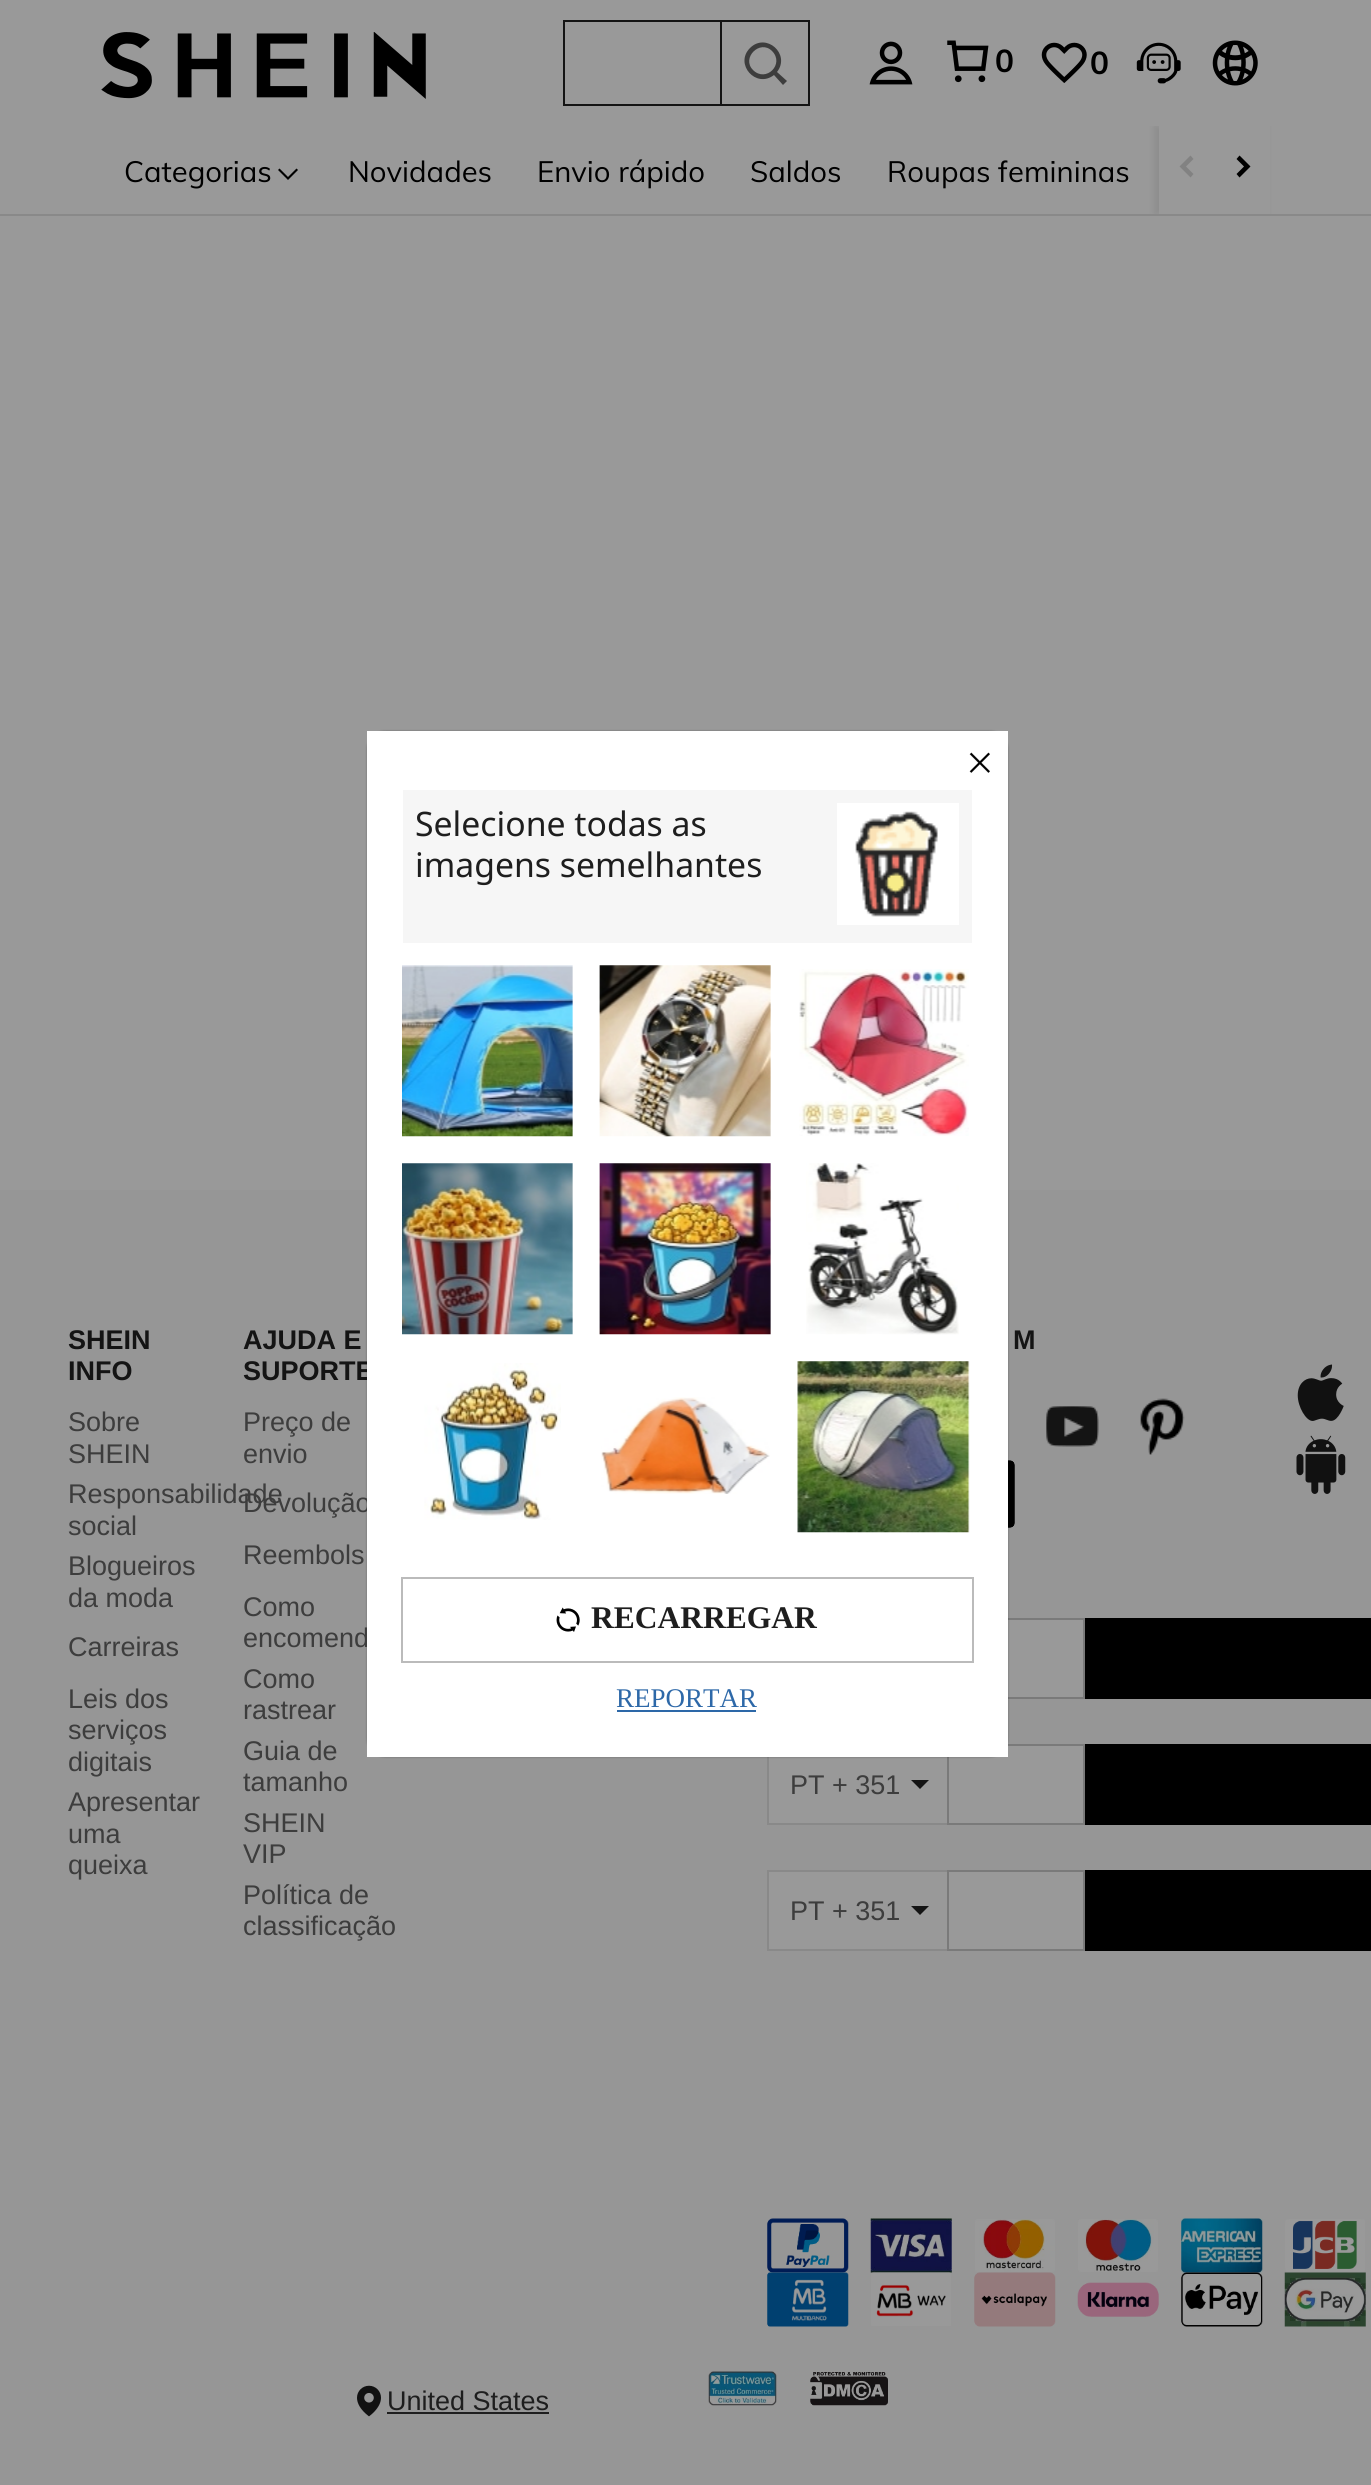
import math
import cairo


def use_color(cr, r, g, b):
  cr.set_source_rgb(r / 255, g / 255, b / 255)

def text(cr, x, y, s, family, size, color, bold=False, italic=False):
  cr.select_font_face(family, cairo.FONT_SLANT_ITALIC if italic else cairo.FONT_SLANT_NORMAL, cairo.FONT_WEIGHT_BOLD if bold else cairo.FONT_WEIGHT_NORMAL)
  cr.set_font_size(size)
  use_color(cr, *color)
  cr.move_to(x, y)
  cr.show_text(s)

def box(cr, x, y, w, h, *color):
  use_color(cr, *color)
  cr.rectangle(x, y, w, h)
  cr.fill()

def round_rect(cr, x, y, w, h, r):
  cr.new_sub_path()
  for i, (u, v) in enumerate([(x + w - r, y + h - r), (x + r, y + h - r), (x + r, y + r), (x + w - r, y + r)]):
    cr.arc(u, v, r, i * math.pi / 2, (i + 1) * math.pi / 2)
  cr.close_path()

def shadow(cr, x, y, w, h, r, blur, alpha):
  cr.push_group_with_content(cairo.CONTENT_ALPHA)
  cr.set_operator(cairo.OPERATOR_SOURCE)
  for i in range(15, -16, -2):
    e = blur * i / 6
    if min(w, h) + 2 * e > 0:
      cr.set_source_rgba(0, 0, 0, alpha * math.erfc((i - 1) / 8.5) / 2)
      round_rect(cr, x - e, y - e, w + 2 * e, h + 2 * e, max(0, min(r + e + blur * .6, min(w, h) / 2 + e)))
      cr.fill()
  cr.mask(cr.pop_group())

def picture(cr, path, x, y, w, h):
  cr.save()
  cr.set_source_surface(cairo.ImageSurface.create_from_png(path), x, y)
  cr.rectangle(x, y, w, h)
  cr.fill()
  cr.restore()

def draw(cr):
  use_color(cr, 153, 153, 153)
  cr.paint()
  picture(cr, "img_01.png", 101, 32, 325, 67)
  box(cr, 563, 20, 157, 2, 20, 20, 20)
  box(cr, 563, 104, 157, 2, 20, 20, 20)
  box(cr, 563, 20, 2, 86, 20, 20, 20)
  cr.rectangle(721, 21, 88, 84)
  cr.stroke()
  use_color(cr, 61, 61, 61)
  cr.set_fill_rule(cairo.FILL_RULE_EVEN_ODD)
  cr.new_path()
  cr.move_to(750, 48)
  cr.curve_to(766, 32, 791, 54, 777, 72)
  cr.line_to(787, 81)
  cr.line_to(783, 85)
  cr.line_to(774, 75)
  cr.curve_to(756, 89, 734, 64, 750, 48)
  cr.close_path()
  cr.move_to(772, 51)
  cr.curve_to(760, 39, 741, 58, 753, 70)
  cr.curve_to(766, 83, 785, 64, 772, 51)
  cr.close_path()
  cr.fill()
  picture(cr, "img_02.png", 869, 41, 44, 44)
  picture(cr, "img_03.png", 947, 40, 42, 43)
  picture(cr, "img_04.png", 1041, 42, 46, 41)
  picture(cr, "img_05.png", 1136, 42, 45, 42)
  picture(cr, "img_06.png", 1212, 40, 46, 46)
  box(cr, 0, 214, 1371, 2, 137, 137, 137)
  use_color(cr, 0, 0, 0)
  cr.set_fill_rule(cairo.FILL_RULE_WINDING)
  cr.new_path()
  cr.move_to(296.5, 168.5)
  cr.line_to(298, 170)
  cr.line_to(288, 180)
  cr.line_to(278, 170)
  cr.line_to(279.5, 168.5)
  cr.line_to(288, 177)
  cr.close_path()
  cr.fill()
  cr.save()
  cr.rectangle(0, 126, 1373, 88)
  cr.clip()
  use_color(cr, 0, 0, 0)
  shadow(cr, 1154, 126, 113, 88, 0, 3.5, 0.08)
  cr.restore()
  box(cr, 1159, 126, 111, 88, 153, 153, 153)
  use_color(cr, 130, 130, 130)
  cr.set_fill_rule(cairo.FILL_RULE_EVEN_ODD)
  cr.new_path()
  cr.move_to(1190.5, 155.5)
  cr.line_to(1193.5, 159)
  cr.line_to(1186, 166.5)
  cr.line_to(1193.5, 174)
  cr.line_to(1190.5, 177.5)
  cr.line_to(1179.5, 166.5)
  cr.close_path()
  cr.fill()
  use_color(cr, 0, 0, 0)
  cr.new_path()
  cr.move_to(1236.5, 159)
  cr.line_to(1239.5, 155.5)
  cr.line_to(1250.5, 166.5)
  cr.line_to(1239.5, 177.5)
  cr.line_to(1236.5, 174)
  cr.line_to(1244, 166.5)
  cr.close_path()
  cr.fill()
  box(cr, 0, 1190, 1371, 1295, 150, 150, 150)
  picture(cr, "img_07.png", 1046, 1406, 53, 41)
  picture(cr, "img_08.png", 1140, 1398, 45, 57)
  picture(cr, "img_09.png", 1008, 1460, 7, 68)
  picture(cr, "img_10.png", 1297, 1364, 47, 57)
  picture(cr, "img_11.png", 1296, 1435, 50, 59)
  box(cr, 1008, 1620, 75, 77, 153, 153, 153)
  cr.rectangle(768, 1619, 316, 79)
  use_color(cr, 122, 122, 122)
  cr.stroke()
  box(cr, 1085, 1618, 286, 81, 0, 0, 0)
  box(cr, 769, 1757, 178, 66, 153, 153, 153)
  box(cr, 767, 1823, 180, 2, 137, 137, 137)
  box(cr, 767, 1757, 2, 68, 137, 137, 137)
  use_color(cr, 20, 20, 20)
  cr.set_fill_rule(cairo.FILL_RULE_WINDING)
  cr.new_path()
  cr.move_to(911, 1780)
  cr.line_to(929, 1780)
  cr.line_to(920, 1789)
  cr.close_path()
  cr.fill()
  use_color(cr, 153, 153, 153)
  cr.rectangle(948, 1745, 136, 79)
  cr.fill_preserve()
  use_color(cr, 122, 122, 122)
  cr.stroke()
  box(cr, 1085, 1744, 286, 81, 0, 0, 0)
  box(cr, 769, 1872, 178, 77, 153, 153, 153)
  box(cr, 767, 1870, 180, 2, 137, 137, 137)
  box(cr, 767, 1949, 180, 2, 137, 137, 137)
  box(cr, 767, 1870, 2, 81, 137, 137, 137)
  use_color(cr, 20, 20, 20)
  cr.new_path()
  cr.move_to(911, 1906)
  cr.line_to(929, 1906)
  cr.line_to(920, 1915)
  cr.close_path()
  cr.fill()
  use_color(cr, 153, 153, 153)
  cr.rectangle(948, 1871, 136, 79)
  cr.fill_preserve()
  use_color(cr, 122, 122, 122)
  cr.stroke()
  box(cr, 1085, 1870, 286, 81, 0, 0, 0)
  picture(cr, "img_12.png", 767, 2218, 82, 55)
  picture(cr, "img_13.png", 870, 2218, 82, 55)
  picture(cr, "img_14.png", 975, 2219, 80, 53)
  picture(cr, "img_15.png", 1078, 2219, 80, 53)
  picture(cr, "img_16.png", 1181, 2218, 82, 55)
  picture(cr, "img_17.png", 1285, 2219, 80, 53)
  picture(cr, "img_18.png", 767, 2272, 82, 55)
  picture(cr, "img_19.png", 871, 2272, 80, 54)
  picture(cr, "img_20.png", 974, 2272, 82, 55)
  picture(cr, "img_21.png", 1077, 2282, 82, 35)
  picture(cr, "img_22.png", 1181, 2272, 82, 55)
  picture(cr, "img_23.png", 1284, 2272, 82, 55)
  picture(cr, "img_24.png", 357, 2385, 24, 32)
  box(cr, 387, 2412, 162, 2, 30, 30, 30)
  picture(cr, "img_25.png", 708, 2371, 69, 35)
  picture(cr, "img_26.png", 810, 2372, 78, 34)
  use_color(cr, 0, 0, 0)
  shadow(cr, 367, 731, 641, 1026, 18, 1, 0.3)
  text(cr, 995, 72, "0", "Muli", 31.5, (0, 0, 0), bold=True)
  text(cr, 1090, 74, "0", "Muli", 31.5, (0, 0, 0), bold=True)
  text(cr, 124, 182, "Categorias", "Muli", 29.25, (0, 0, 0))
  text(cr, 348, 182, "Novidades", "Muli", 29.25, (0, 0, 0))
  text(cr, 537, 182, "Envio rápido", "Muli", 29.25, (0, 0, 0))
  text(cr, 750, 182, "Saldos", "Muli", 29.25, (0, 0, 0))
  text(cr, 887, 182, "Roupas femininas", "Muli", 29.25, (0, 0, 0))
  text(cr, 68, 1349, "SHEIN", "Liberation Sans", 27, (20, 20, 20), bold=True)
  text(cr, 68, 1380, "INFO", "Liberation Sans", 27, (20, 20, 20), bold=True)
  text(cr, 68, 1431, "Sobre", "Liberation Sans", 27, (61, 61, 61))
  text(cr, 68, 1463, "SHEIN", "Liberation Sans", 27, (61, 61, 61))
  text(cr, 68, 1503, "Responsabilidade", "Liberation Sans", 27, (61, 61, 61))
  text(cr, 68, 1535, "social", "Liberation Sans", 27, (61, 61, 61))
  text(cr, 68, 1575, "Blogueiros", "Liberation Sans", 27, (61, 61, 61))
  text(cr, 68, 1607, "da moda", "Liberation Sans", 27, (61, 61, 61))
  text(cr, 68, 1656, "Carreiras", "Liberation Sans", 27, (61, 61, 61))
  text(cr, 68, 1708, "Leis dos", "Liberation Sans", 27, (61, 61, 61))
  text(cr, 68, 1739, "serviços", "Liberation Sans", 27, (61, 61, 61))
  text(cr, 68, 1771, "digitais", "Liberation Sans", 27, (61, 61, 61))
  text(cr, 68, 1811, "Apresentar", "Liberation Sans", 27, (61, 61, 61))
  text(cr, 68, 1843, "uma", "Liberation Sans", 27, (61, 61, 61))
  text(cr, 68, 1874, "queixa", "Liberation Sans", 27, (61, 61, 61))
  text(cr, 243, 1349, "AJUDA E", "Liberation Sans", 27, (20, 20, 20), bold=True)
  text(cr, 243, 1380, "SUPORTE", "Liberation Sans", 27, (20, 20, 20), bold=True)
  text(cr, 243, 1431, "Preço de", "Liberation Sans", 27, (61, 61, 61))
  text(cr, 243, 1463, "envio", "Liberation Sans", 27, (61, 61, 61))
  text(cr, 243, 1512, "Devolução", "Liberation Sans", 27, (61, 61, 61))
  text(cr, 243, 1564, "Reembols", "Liberation Sans", 27, (61, 61, 61))
  text(cr, 243, 1616, "Como", "Liberation Sans", 27, (61, 61, 61))
  text(cr, 243, 1647, "encomend", "Liberation Sans", 27, (61, 61, 61))
  text(cr, 243, 1688, "Como", "Liberation Sans", 27, (61, 61, 61))
  text(cr, 243, 1719, "rastrear", "Liberation Sans", 27, (61, 61, 61))
  text(cr, 243, 1760, "Guia de", "Liberation Sans", 27, (61, 61, 61))
  text(cr, 243, 1791, "tamanho", "Liberation Sans", 27, (61, 61, 61))
  text(cr, 243, 1832, "SHEIN", "Liberation Sans", 27, (61, 61, 61))
  text(cr, 243, 1863, "VIP", "Liberation Sans", 27, (61, 61, 61))
  text(cr, 243, 1904, "Política de", "Liberation Sans", 27, (61, 61, 61))
  text(cr, 243, 1935, "classificação", "Liberation Sans", 27, (61, 61, 61))
  text(cr, 1013, 1349, "M", "Liberation Sans", 27, (20, 20, 20), bold=True)
  text(cr, 790, 1794, "PT + 351", "Liberation Sans", 27, (61, 61, 61))
  text(cr, 790, 1920, "PT + 351", "Liberation Sans", 27, (61, 61, 61))
  text(cr, 387, 2410, "United States", "Liberation Sans", 27, (30, 30, 30))
  box(cr, 367, 731, 641, 1026, 255, 255, 255)
  picture(cr, "img_27.png", 969, 752, 21, 21)
  box(cr, 403, 790, 569, 153, 246, 246, 246)
  text(cr, 415, 836, "Selecione todas as", "Noto Sans", 33.75, (30, 30, 30))
  text(cr, 415, 877, "imagens semelhantes", "Noto Sans", 33.75, (30, 30, 30))
  box(cr, 837, 803, 122, 122, 255, 255, 255)
  picture(cr, "img_28.png", 855, 811, 83, 106)
  picture(cr, "img_29.png", 402, 965, 171, 172)
  picture(cr, "img_30.png", 599, 965, 172, 172)
  picture(cr, "img_31.png", 799, 969, 170, 167)
  picture(cr, "img_32.png", 402, 1163, 171, 172)
  picture(cr, "img_33.png", 599, 1163, 172, 172)
  picture(cr, "img_34.png", 806, 1163, 153, 172)
  picture(cr, "img_35.png", 424, 1363, 137, 157)
  picture(cr, "img_36.png", 601, 1397, 169, 97)
  picture(cr, "img_37.png", 797, 1361, 173, 172)
  cr.rectangle(402, 1578, 571, 84)
  use_color(cr, 187, 187, 187)
  cr.stroke()
  picture(cr, "img_38.png", 556, 1607, 24, 25)
  text(cr, 591, 1628, "RECARREGAR", "Liberation Serif", 31.5, (30, 30, 30), bold=True)
  text(cr, 616, 1707, "REPORTAR", "Liberation Serif", 27, (45, 104, 168))
  box(cr, 617, 1710, 139, 2, 45, 104, 168)


surface = cairo.ImageSurface(cairo.FORMAT_RGB24, 1371, 2485)
cr = cairo.Context(surface)
options = cairo.FontOptions()
options.set_hint_metrics(cairo.HINT_METRICS_OFF)
options.set_hint_style(cairo.HINT_STYLE_NONE)
cr.set_font_options(options)
cr.set_miter_limit(4)
draw(cr)
surface.write_to_png("out.png")
